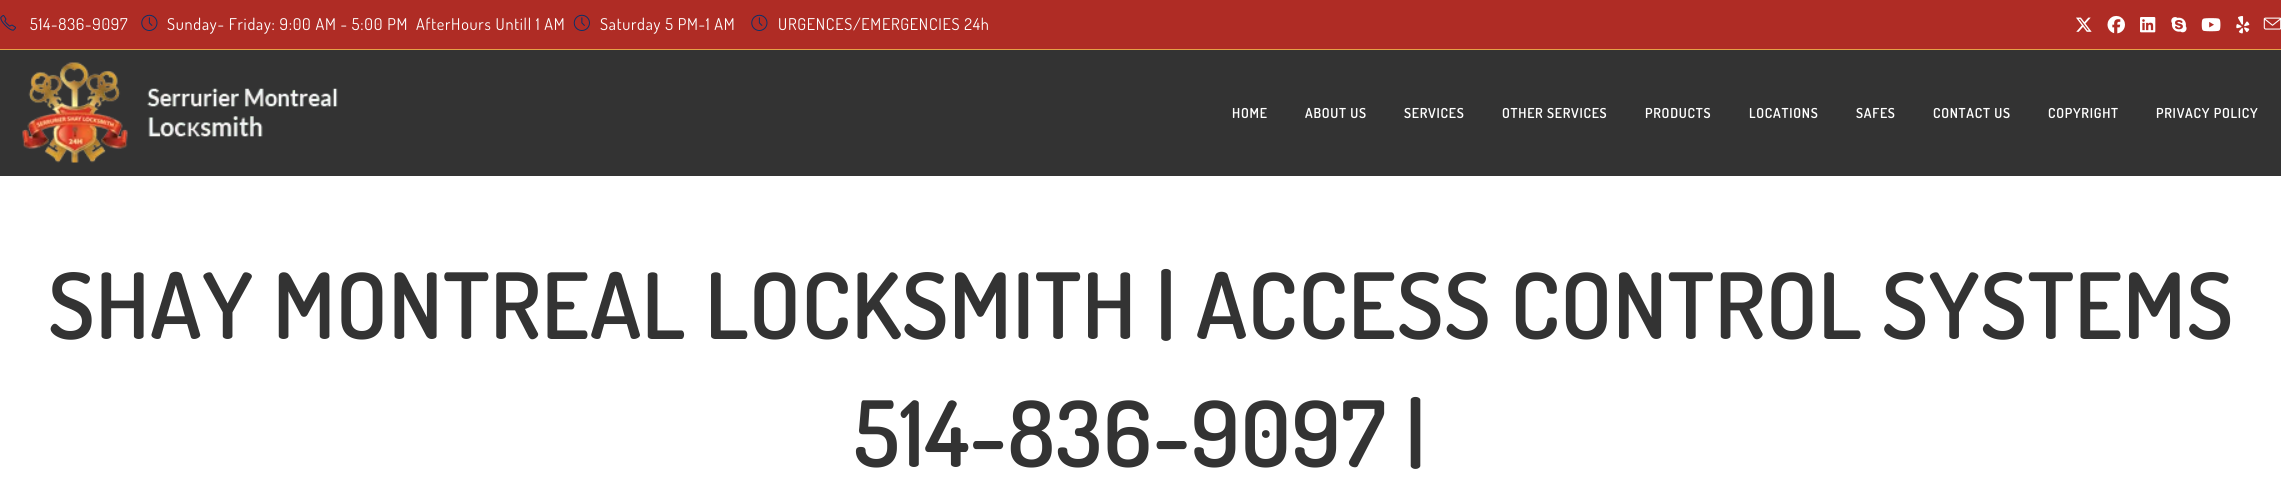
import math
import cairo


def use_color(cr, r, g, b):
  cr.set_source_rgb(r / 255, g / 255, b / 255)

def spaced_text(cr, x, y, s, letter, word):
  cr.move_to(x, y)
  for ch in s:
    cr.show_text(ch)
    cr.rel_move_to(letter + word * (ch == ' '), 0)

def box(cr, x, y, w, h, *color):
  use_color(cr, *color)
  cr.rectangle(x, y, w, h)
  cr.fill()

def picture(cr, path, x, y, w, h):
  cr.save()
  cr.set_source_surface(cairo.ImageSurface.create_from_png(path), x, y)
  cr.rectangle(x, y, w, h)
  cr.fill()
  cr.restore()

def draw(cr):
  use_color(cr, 255, 255, 255)
  cr.paint()
  box(cr, 0, 0, 2281, 49, 175, 44, 37)
  box(cr, 0, 49, 2281, 1, 229, 161, 73)
  picture(cr, "img_01.png", 0, 15, 16, 16)
  picture(cr, "img_02.png", 141, 14, 17, 17)
  picture(cr, "img_03.png", 573, 14, 17, 17)
  picture(cr, "img_02.png", 751, 14, 17, 17)
  picture(cr, "img_04.png", 2076, 17, 16, 15)
  picture(cr, "img_05.png", 2107, 15, 18, 19)
  picture(cr, "img_06.png", 2140, 17, 16, 16)
  picture(cr, "img_07.png", 2171, 17, 16, 16)
  picture(cr, "img_08.png", 2201, 18, 20, 14)
  picture(cr, "img_09.png", 2236, 16, 14, 18)
  picture(cr, "img_10.png", 2263, 17, 18, 13)
  box(cr, 0, 50, 2281, 126, 51, 51, 51)
  picture(cr, "img_11.png", 22, 62, 316, 101)
  cr.select_font_face("Dosis")
  cr.set_font_size(16.25)
  use_color(cr, 255, 255, 255)
  spaced_text(cr, 30, 30, "514-836-9097", 0.75, 0)
  spaced_text(cr, 167, 30, "Sunday- Friday: 9:00 AM - 5:00 PM  AfterHours Untill 1 AM", 0.75, 0)
  spaced_text(cr, 600, 30, "Saturday 5 PM-1 AM", 0.75, 0)
  spaced_text(cr, 778, 30, "URGENCES/EMERGENCIES 24h", 0.75, 0)
  cr.select_font_face("Dosis SemiBold")
  cr.set_font_size(13.75)
  spaced_text(cr, 1232, 118, "HOME", 0.75, 0)
  spaced_text(cr, 1305, 118, "ABOUT US", 0.75, 0)
  spaced_text(cr, 1404, 118, "SERVICES", 0.75, 0)
  spaced_text(cr, 1502, 118, "OTHER SERVICES", 0.75, 0)
  spaced_text(cr, 1645, 118, "PRODUCTS", 0.75, 0)
  spaced_text(cr, 1749, 118, "LOCATIONS", 0.75, 0)
  spaced_text(cr, 1856, 118, "SAFES", 0.75, 0)
  spaced_text(cr, 1933, 118, "CONTACT US", 0.75, 0)
  spaced_text(cr, 2048, 118, "COPYRIGHT", 0.75, 0)
  spaced_text(cr, 2156, 118, "PRIVACY POLICY", 0.75, 0)
  cr.set_font_size(91.25)
  use_color(cr, 51, 51, 51)
  spaced_text(cr, 48, 339, "SHAY MONTREAL LOCKSMITH | ACCESS CONTROL SYSTEMS", 0.75, 0)
  spaced_text(cr, 854, 467, "514-836-9097 |", 0.75, 0)


surface = cairo.ImageSurface(cairo.FORMAT_RGB24, 2281, 492)
cr = cairo.Context(surface)
options = cairo.FontOptions()
options.set_hint_metrics(cairo.HINT_METRICS_OFF)
options.set_hint_style(cairo.HINT_STYLE_NONE)
cr.set_font_options(options)
cr.set_miter_limit(4)
draw(cr)
surface.write_to_png("out.png")
